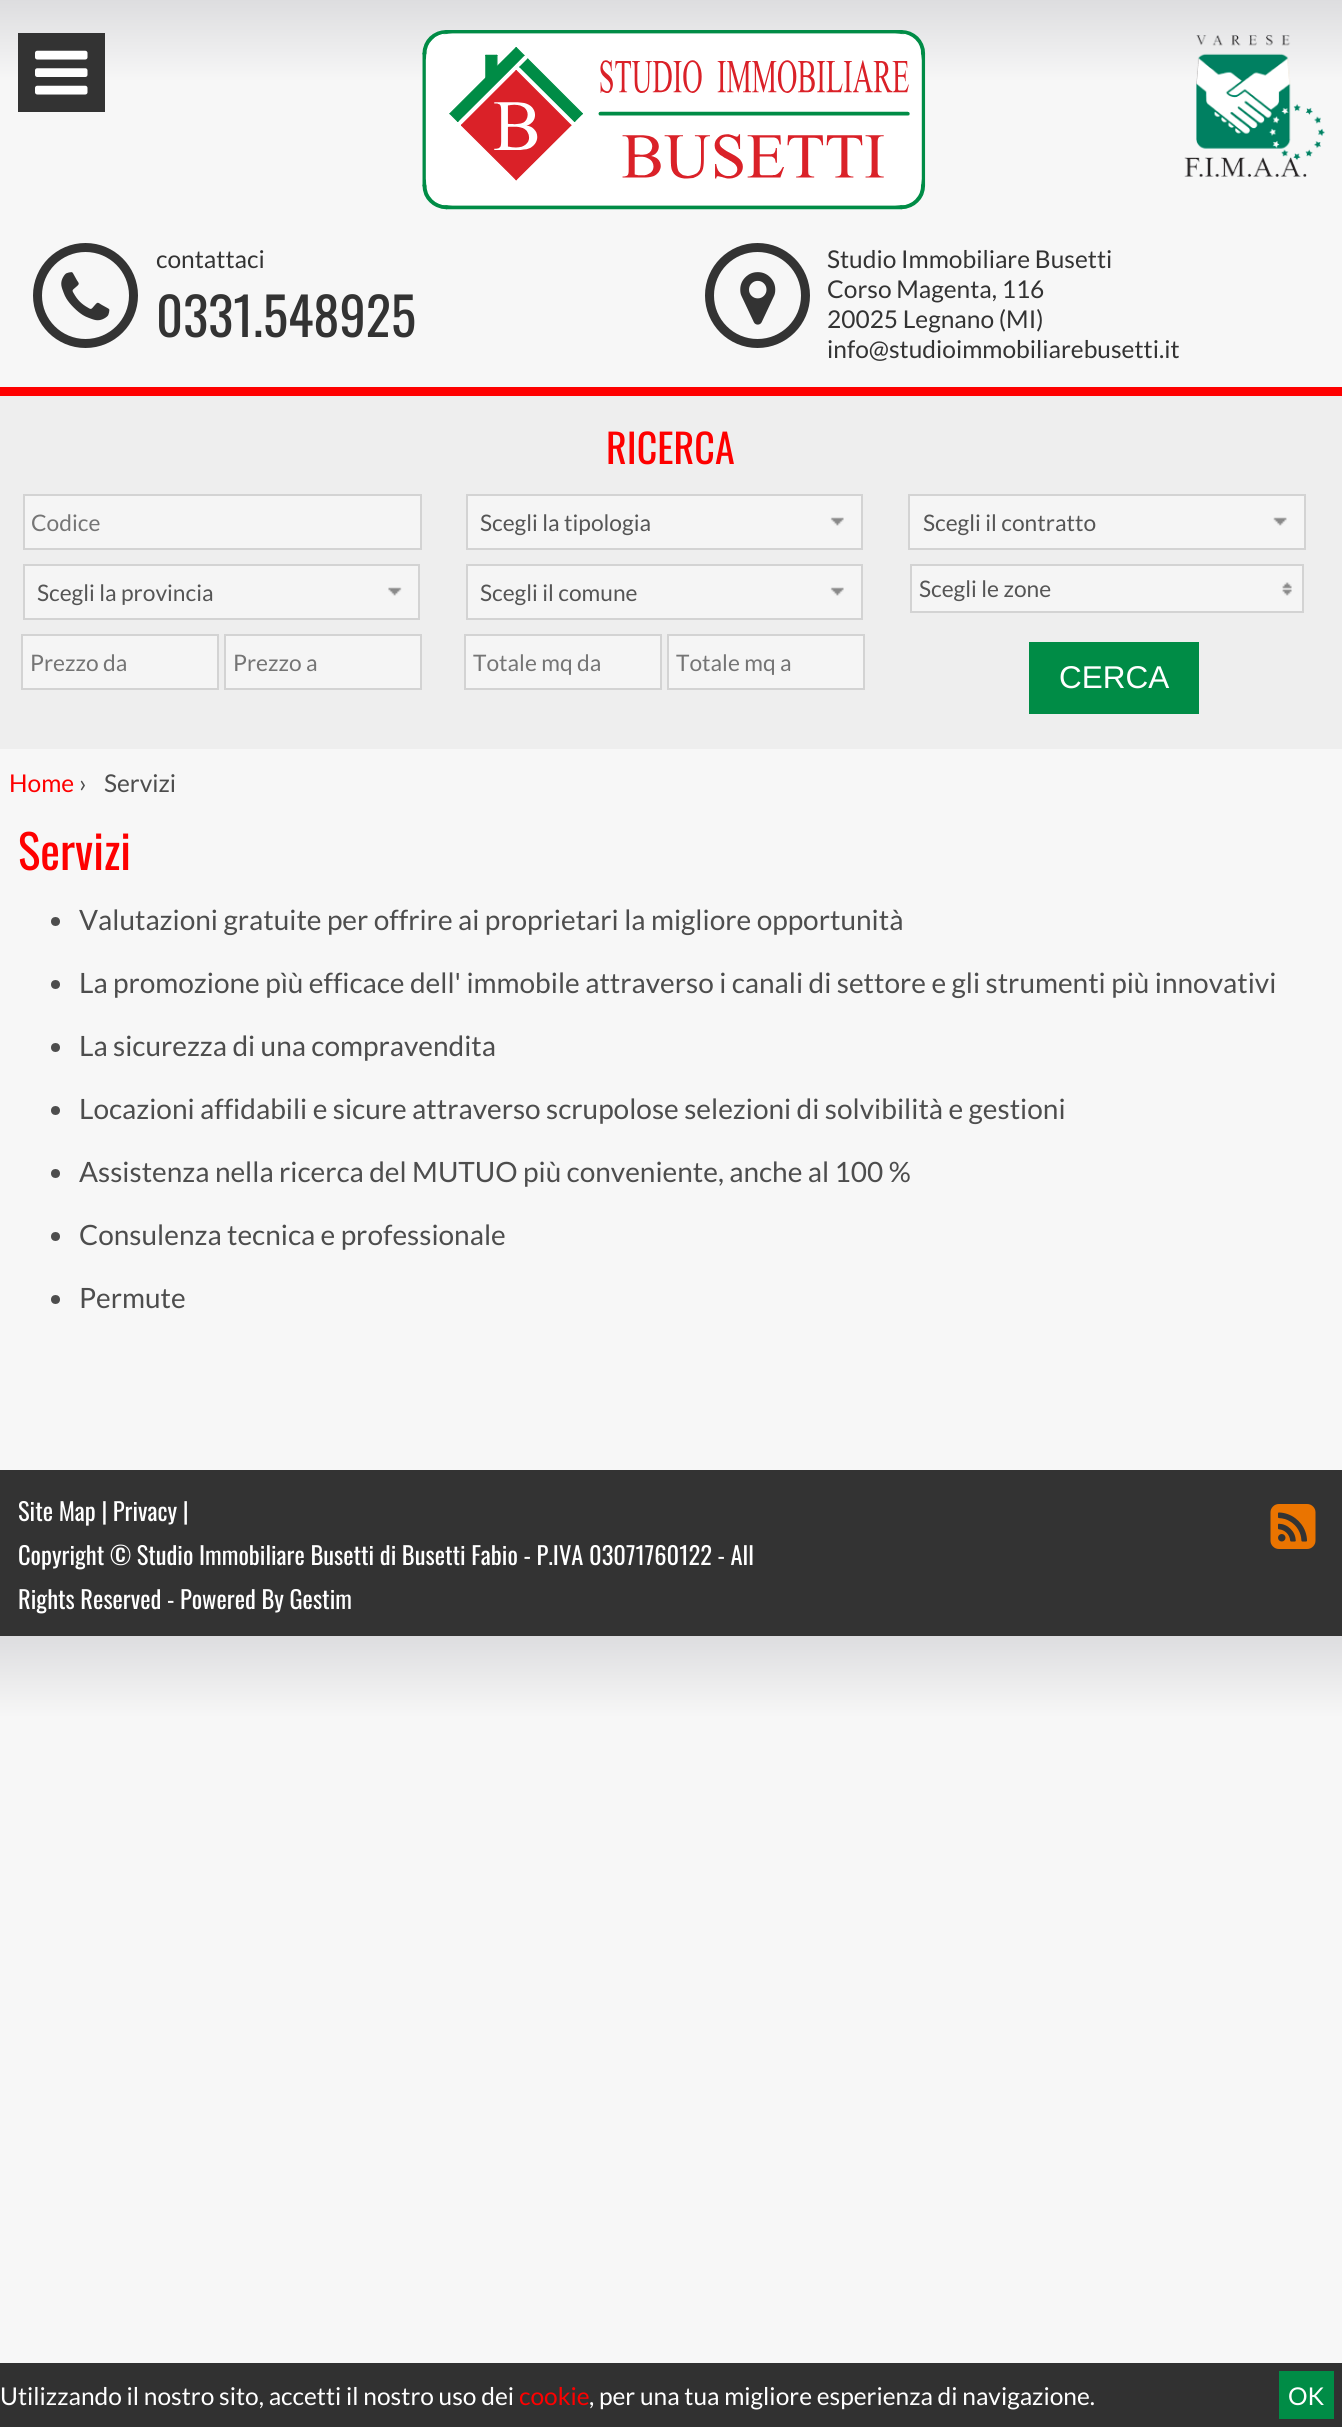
import math
import cairo


def use_color(cr, r, g, b):
  cr.set_source_rgb(r / 255, g / 255, b / 255)

def text(cr, x, y, s, family, size, color, bold=False, italic=False):
  cr.select_font_face(family, cairo.FONT_SLANT_ITALIC if italic else cairo.FONT_SLANT_NORMAL, cairo.FONT_WEIGHT_BOLD if bold else cairo.FONT_WEIGHT_NORMAL)
  cr.set_font_size(size)
  use_color(cr, *color)
  cr.move_to(x, y)
  cr.show_text(s)

def box(cr, x, y, w, h, *color):
  use_color(cr, *color)
  cr.rectangle(x, y, w, h)
  cr.fill()

def picture(cr, path, x, y, w, h):
  cr.save()
  cr.set_source_surface(cairo.ImageSurface.create_from_png(path), x, y)
  cr.rectangle(x, y, w, h)
  cr.fill()
  cr.restore()

def draw(cr):
  use_color(cr, 255, 255, 255)
  cr.paint()
  gradient = cairo.LinearGradient(671, 0, 671, 1636)
  gradient.add_color_stop_rgba(0, 0.867, 0.867, 0.875, 1)
  gradient.add_color_stop_rgba(0.05, 0.969, 0.969, 0.969, 1)
  cr.set_source(gradient)
  cr.rectangle(0, 0, 1342, 1470)
  cr.fill()
  gradient = cairo.LinearGradient(671, 1636, 671, 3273)
  gradient.add_color_stop_rgba(0, 0.867, 0.867, 0.875, 1)
  gradient.add_color_stop_rgba(0.05, 0.969, 0.969, 0.969, 1)
  cr.set_source(gradient)
  cr.rectangle(0, 1636, 1342, 727)
  cr.fill()
  box(cr, 0, 387, 1342, 9, 254, 0, 0)
  picture(cr, "img_01.png", 1184, 35, 141, 142)
  box(cr, 18, 33, 87, 79, 51, 51, 51)
  picture(cr, "img_02.png", 35, 50, 53, 45)
  picture(cr, "img_03.png", 422, 30, 504, 180)
  cr.arc(85.5, 295.5, 48, 0, 2 * math.pi)
  cr.set_line_width(9)
  cr.stroke()
  picture(cr, "img_04.png", 61, 272, 49, 49)
  cr.arc(757.5, 295.5, 48, 0, 2 * math.pi)
  cr.stroke()
  picture(cr, "img_05.png", 740, 272, 36, 53)
  box(cr, 0, 396, 1342, 353, 238, 238, 238)
  use_color(cr, 245, 245, 245)
  cr.rectangle(24, 495, 397, 54)
  cr.fill_preserve()
  use_color(cr, 211, 211, 211)
  cr.set_line_width(2)
  cr.stroke()
  use_color(cr, 245, 245, 245)
  cr.rectangle(467, 495, 395, 54)
  cr.fill_preserve()
  use_color(cr, 211, 211, 211)
  cr.stroke()
  picture(cr, "img_06.png", 830, 517, 14, 9)
  use_color(cr, 245, 245, 245)
  cr.rectangle(909, 495, 396, 54)
  cr.fill_preserve()
  use_color(cr, 211, 211, 211)
  cr.stroke()
  picture(cr, "img_07.png", 1273, 517, 14, 9)
  use_color(cr, 245, 245, 245)
  cr.rectangle(24, 565, 395, 54)
  cr.fill_preserve()
  use_color(cr, 211, 211, 211)
  cr.stroke()
  picture(cr, "img_08.png", 388, 587, 14, 9)
  use_color(cr, 245, 245, 245)
  cr.rectangle(467, 565, 395, 54)
  cr.fill_preserve()
  use_color(cr, 211, 211, 211)
  cr.stroke()
  picture(cr, "img_06.png", 830, 587, 14, 9)
  use_color(cr, 245, 245, 245)
  cr.rectangle(911, 565, 392, 47)
  cr.fill_preserve()
  use_color(cr, 211, 211, 211)
  cr.stroke()
  picture(cr, "img_09.png", 1282, 582, 10, 14)
  use_color(cr, 245, 245, 245)
  cr.rectangle(22, 635, 196, 54)
  cr.fill_preserve()
  use_color(cr, 211, 211, 211)
  cr.stroke()
  use_color(cr, 245, 245, 245)
  cr.rectangle(225, 635, 196, 54)
  cr.fill_preserve()
  use_color(cr, 211, 211, 211)
  cr.stroke()
  use_color(cr, 245, 245, 245)
  cr.rectangle(465, 635, 196, 54)
  cr.fill_preserve()
  use_color(cr, 211, 211, 211)
  cr.stroke()
  use_color(cr, 245, 245, 245)
  cr.rectangle(668, 635, 196, 54)
  cr.fill_preserve()
  use_color(cr, 211, 211, 211)
  cr.stroke()
  box(cr, 1029, 642, 170, 72, 0, 140, 70)
  use_color(cr, 77, 77, 77)
  cr.arc(55.5, 921.5, 4.5, 0, 2 * math.pi)
  cr.fill()
  cr.arc(55.5, 984.5, 4.5, 0, 2 * math.pi)
  cr.fill()
  cr.arc(55.5, 1047.5, 4.5, 0, 2 * math.pi)
  cr.fill()
  cr.arc(55.5, 1110.5, 4.5, 0, 2 * math.pi)
  cr.fill()
  cr.arc(55.5, 1173.5, 4.5, 0, 2 * math.pi)
  cr.fill()
  cr.arc(55.5, 1236.5, 4.5, 0, 2 * math.pi)
  cr.fill()
  cr.arc(55.5, 1299.5, 4.5, 0, 2 * math.pi)
  cr.fill()
  box(cr, 0, 1470, 1342, 166, 51, 51, 51)
  picture(cr, "img_10.png", 1270, 1504, 46, 45)
  box(cr, 0, 2363, 1342, 64, 49, 49, 49)
  box(cr, 1279, 2371, 55, 48, 0, 140, 70)
  text(cr, 156, 268, "contattaci", "Lato", 24.5, (51, 51, 51))
  text(cr, 156, 337, "0331.548925", "Oswald", 52.5, (51, 51, 51))
  text(cr, 827, 268, "Studio Immobiliare Busetti", "Lato", 24.5, (51, 51, 51))
  text(cr, 827, 298, "Corso Magenta, 116", "Lato", 24.5, (51, 51, 51))
  text(cr, 827, 328, "20025 Legnano (MI)", "Lato", 24.5, (51, 51, 51))
  text(cr, 827, 358, "info@studioimmobiliarebusetti.it", "Lato", 24.5, (51, 51, 51))
  text(cr, 606, 464, "RICERCA", "Oswald", 40, (254, 0, 0))
  cr.save()
  cr.rectangle(32, 508, 388, 28)
  cr.clip()
  text(cr, 31, 531, "Codice", "Lato", 22.75, (117, 117, 117))
  cr.restore()
  text(cr, 480, 531, "Scegli la tipologia", "Lato", 22.75, (85, 85, 85))
  text(cr, 923, 531, "Scegli il contratto", "Lato", 22.75, (85, 85, 85))
  text(cr, 37, 601, "Scegli la provincia", "Lato", 22.75, (85, 85, 85))
  text(cr, 480, 601, "Scegli il comune", "Lato", 22.75, (85, 85, 85))
  text(cr, 919, 597, "Scegli le zone", "Lato", 22.75, (85, 85, 85))
  text(cr, 30, 671, "Prezzo da", "Lato", 22.75, (117, 117, 117))
  text(cr, 233, 671, "Prezzo a", "Lato", 22.75, (117, 117, 117))
  text(cr, 473, 671, "Totale mq da", "Lato", 22.75, (117, 117, 117))
  text(cr, 676, 671, "Totale mq a", "Lato", 22.75, (117, 117, 117))
  text(cr, 1059, 688, "CERCA", "Liberation Sans", 31.5, (255, 255, 255))
  text(cr, 9, 792, "Home", "Lato", 24.5, (254, 0, 0))
  text(cr, 79, 792, "›", "Lato", 24.5, (77, 77, 77))
  text(cr, 104, 792, "Servizi", "Lato", 24.5, (77, 77, 77))
  text(cr, 18, 870, "Servizi", "Oswald", 47, (254, 0, 0))
  text(cr, 79, 930, "Valutazioni gratuite per offrire ai proprietari la migliore opportunità", "Lato", 28, (77, 77, 77))
  text(cr, 79, 993, "La promozione pìù efficace dell' immobile attraverso i canali di settore e gli strumenti più innovativi", "Lato", 28, (77, 77, 77))
  text(cr, 79, 1056, "La sicurezza di una compravendita", "Lato", 28, (77, 77, 77))
  text(cr, 79, 1119, "Locazioni affidabili e sicure attraverso scrupolose selezioni di solvibilità e gestioni", "Lato", 28, (77, 77, 77))
  text(cr, 79, 1182, "Assistenza nella ricerca del MUTUO più conveniente, anche al 100 %", "Lato", 28, (77, 77, 77))
  text(cr, 79, 1245, "Consulenza tecnica e professionale", "Lato", 28, (77, 77, 77))
  text(cr, 79, 1308, "Permute", "Lato", 28, (77, 77, 77))
  text(cr, 18, 1521, "Site Map | Privacy |", "Oswald", 24.5, (255, 255, 255))
  text(cr, 18, 1565, "Copyright © Studio Immobiliare Busetti di Busetti Fabio - P.IVA 03071760122 - All", "Oswald", 24.5, (255, 255, 255))
  text(cr, 18, 1609, "Rights Reserved - Powered By Gestim", "Oswald", 24.5, (255, 255, 255))
  text(cr, 0, 2405, "Utilizzando il nostro sito, accetti il nostro uso dei", "Lato", 24.5, (255, 255, 255))
  text(cr, 519, 2405, "cookie", "Lato", 24.5, (254, 0, 0))
  text(cr, 589, 2405, ", per una tua migliore esperienza di navigazione.", "Lato", 24.5, (255, 255, 255))
  text(cr, 1288, 2405, "OK", "Lato", 24.5, (255, 255, 255))


surface = cairo.ImageSurface(cairo.FORMAT_RGB24, 1342, 2427)
cr = cairo.Context(surface)
options = cairo.FontOptions()
options.set_hint_metrics(cairo.HINT_METRICS_OFF)
options.set_hint_style(cairo.HINT_STYLE_NONE)
cr.set_font_options(options)
cr.set_miter_limit(4)
draw(cr)
surface.write_to_png("out.png")
